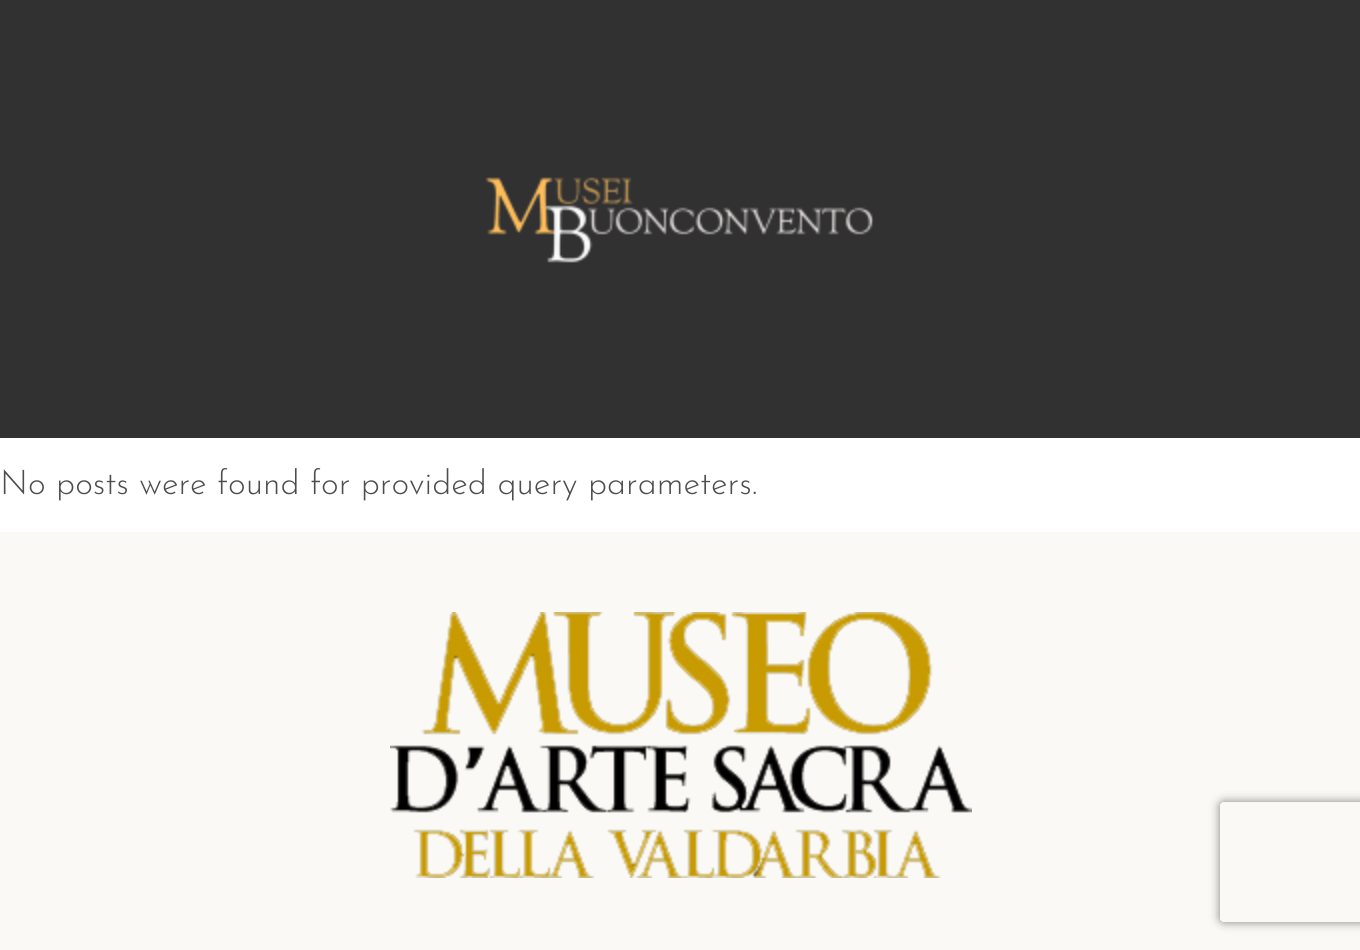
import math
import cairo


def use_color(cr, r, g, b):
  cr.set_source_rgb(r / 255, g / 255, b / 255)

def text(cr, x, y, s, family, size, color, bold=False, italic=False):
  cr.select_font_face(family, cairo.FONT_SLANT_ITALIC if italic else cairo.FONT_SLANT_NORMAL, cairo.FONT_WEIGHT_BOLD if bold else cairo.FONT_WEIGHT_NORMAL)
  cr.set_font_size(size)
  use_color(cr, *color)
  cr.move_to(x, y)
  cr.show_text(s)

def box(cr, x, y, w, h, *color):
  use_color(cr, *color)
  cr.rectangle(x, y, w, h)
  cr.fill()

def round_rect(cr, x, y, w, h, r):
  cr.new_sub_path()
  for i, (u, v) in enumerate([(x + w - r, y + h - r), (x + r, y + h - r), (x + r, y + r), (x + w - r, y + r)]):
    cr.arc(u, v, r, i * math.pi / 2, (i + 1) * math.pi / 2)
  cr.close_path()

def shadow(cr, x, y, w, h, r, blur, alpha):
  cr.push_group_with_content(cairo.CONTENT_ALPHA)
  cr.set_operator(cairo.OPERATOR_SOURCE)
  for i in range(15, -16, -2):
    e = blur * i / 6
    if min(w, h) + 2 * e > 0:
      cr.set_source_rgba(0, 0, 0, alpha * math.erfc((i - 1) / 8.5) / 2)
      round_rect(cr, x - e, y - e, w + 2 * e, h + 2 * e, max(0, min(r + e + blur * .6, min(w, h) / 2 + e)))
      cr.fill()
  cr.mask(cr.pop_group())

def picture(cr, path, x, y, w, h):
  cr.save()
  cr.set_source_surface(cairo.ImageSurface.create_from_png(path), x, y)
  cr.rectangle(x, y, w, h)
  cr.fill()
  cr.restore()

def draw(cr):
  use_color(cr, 255, 255, 255)
  cr.paint()
  box(cr, 0, 0, 1360, 438, 49, 49, 49)
  picture(cr, "img_01.png", 485, 177, 389, 86)
  box(cr, 0, 532, 1360, 418, 250, 249, 245)
  picture(cr, "img_02.png", 390, 612, 582, 266)
  cr.save()
  cr.set_fill_rule(cairo.FILL_RULE_EVEN_ODD)
  cr.new_path()
  cr.move_to(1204, 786)
  cr.line_to(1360, 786)
  cr.line_to(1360, 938)
  cr.line_to(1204, 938)
  cr.close_path()
  cr.move_to(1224, 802)
  cr.line_to(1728, 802)
  cr.curve_to(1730, 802, 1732, 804, 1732, 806)
  cr.line_to(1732, 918)
  cr.curve_to(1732, 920, 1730, 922, 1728, 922)
  cr.line_to(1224, 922)
  cr.curve_to(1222, 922, 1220, 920, 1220, 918)
  cr.line_to(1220, 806)
  cr.curve_to(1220, 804, 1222, 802, 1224, 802)
  cr.close_path()
  cr.clip()
  use_color(cr, 128, 128, 128)
  shadow(cr, 1220, 802, 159, 120, 4, 5, 1)
  cr.restore()
  text(cr, 0, 494, "No posts were found for provided query parameters.", "Josefin Sans Light", 34, (77, 77, 77))


surface = cairo.ImageSurface(cairo.FORMAT_RGB24, 1360, 950)
cr = cairo.Context(surface)
options = cairo.FontOptions()
options.set_hint_metrics(cairo.HINT_METRICS_OFF)
options.set_hint_style(cairo.HINT_STYLE_NONE)
cr.set_font_options(options)
cr.set_miter_limit(4)
draw(cr)
surface.write_to_png("out.png")
